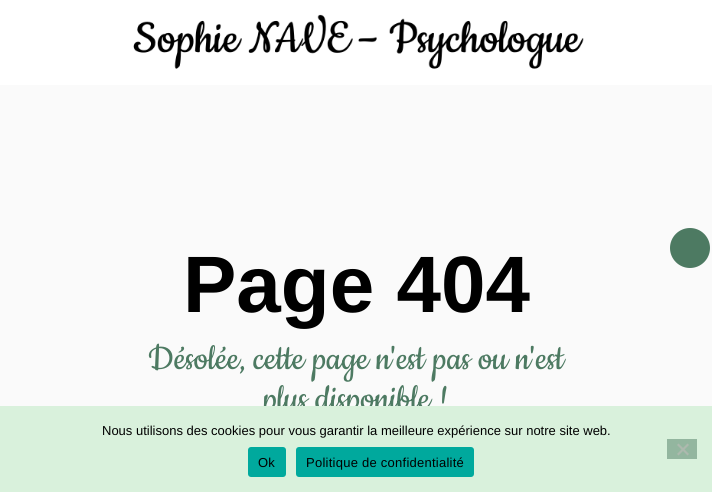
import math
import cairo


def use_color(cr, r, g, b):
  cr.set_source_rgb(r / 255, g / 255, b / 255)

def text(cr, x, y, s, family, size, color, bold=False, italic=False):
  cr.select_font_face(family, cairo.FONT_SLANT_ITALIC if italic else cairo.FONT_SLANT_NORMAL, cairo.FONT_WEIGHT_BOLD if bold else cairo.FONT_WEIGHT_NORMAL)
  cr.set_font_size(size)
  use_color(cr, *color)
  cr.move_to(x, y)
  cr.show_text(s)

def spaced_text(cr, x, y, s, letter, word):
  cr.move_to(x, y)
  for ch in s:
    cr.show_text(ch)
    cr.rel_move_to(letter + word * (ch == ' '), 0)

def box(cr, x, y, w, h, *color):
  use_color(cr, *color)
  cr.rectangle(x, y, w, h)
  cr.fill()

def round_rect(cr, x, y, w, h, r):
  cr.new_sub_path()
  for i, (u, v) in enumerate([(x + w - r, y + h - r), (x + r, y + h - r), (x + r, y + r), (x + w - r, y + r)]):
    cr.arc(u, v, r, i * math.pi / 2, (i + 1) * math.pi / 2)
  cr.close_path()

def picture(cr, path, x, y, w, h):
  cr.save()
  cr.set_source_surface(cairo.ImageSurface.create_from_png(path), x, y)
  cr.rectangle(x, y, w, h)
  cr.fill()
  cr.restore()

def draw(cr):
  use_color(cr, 255, 255, 255)
  cr.paint()
  picture(cr, "img_01.png", 133, 14, 451, 55)
  box(cr, 0, 85, 712, 321, 250, 250, 250)
  use_color(cr, 77, 122, 98)
  cr.arc(690, 248, 20, 0, 2 * math.pi)
  cr.fill()
  text(cr, 183, 312, "Page 404", "Liberation Sans", 80, (0, 0, 0), bold=True)
  text(cr, 148, 369, "Désolée, cette page n'est pas ou n'est", "Cookie", 40, (77, 122, 98))
  text(cr, 263, 409, "plus disponible !", "Cookie", 40, (77, 122, 98))
  box(cr, 0, 406, 712, 86, 217, 241, 220)
  text(cr, 102, 435, "Nous utilisons des cookies pour vous garantir la meilleure expérience sur notre site web.", "Liberation Sans", 13, (0, 0, 0))
  box(cr, 667, 439, 30, 20, 147, 182, 159)
  use_color(cr, 173, 185, 174)
  cr.new_path()
  cr.move_to(687.5, 443.5)
  cr.line_to(689, 445)
  cr.line_to(678.5, 455.5)
  cr.line_to(677, 454)
  cr.close_path()
  cr.fill()
  cr.new_path()
  cr.move_to(677, 445)
  cr.line_to(678.5, 443.5)
  cr.line_to(689, 454)
  cr.line_to(687.5, 455.5)
  cr.close_path()
  cr.fill()
  use_color(cr, 0, 169, 157)
  round_rect(cr, 248, 447, 38, 30, 3)
  cr.fill()
  use_color(cr, 0, 0, 0)
  spaced_text(cr, 258, 467, "Ok", 0.25, 0)
  use_color(cr, 0, 169, 157)
  round_rect(cr, 296, 447, 178, 30, 3)
  cr.fill()
  use_color(cr, 0, 0, 0)
  spaced_text(cr, 306, 467, "Politique de confidentialité", 0.25, 0)


surface = cairo.ImageSurface(cairo.FORMAT_RGB24, 712, 492)
cr = cairo.Context(surface)
options = cairo.FontOptions()
options.set_hint_metrics(cairo.HINT_METRICS_OFF)
options.set_hint_style(cairo.HINT_STYLE_NONE)
cr.set_font_options(options)
cr.set_miter_limit(4)
draw(cr)
surface.write_to_png("out.png")
